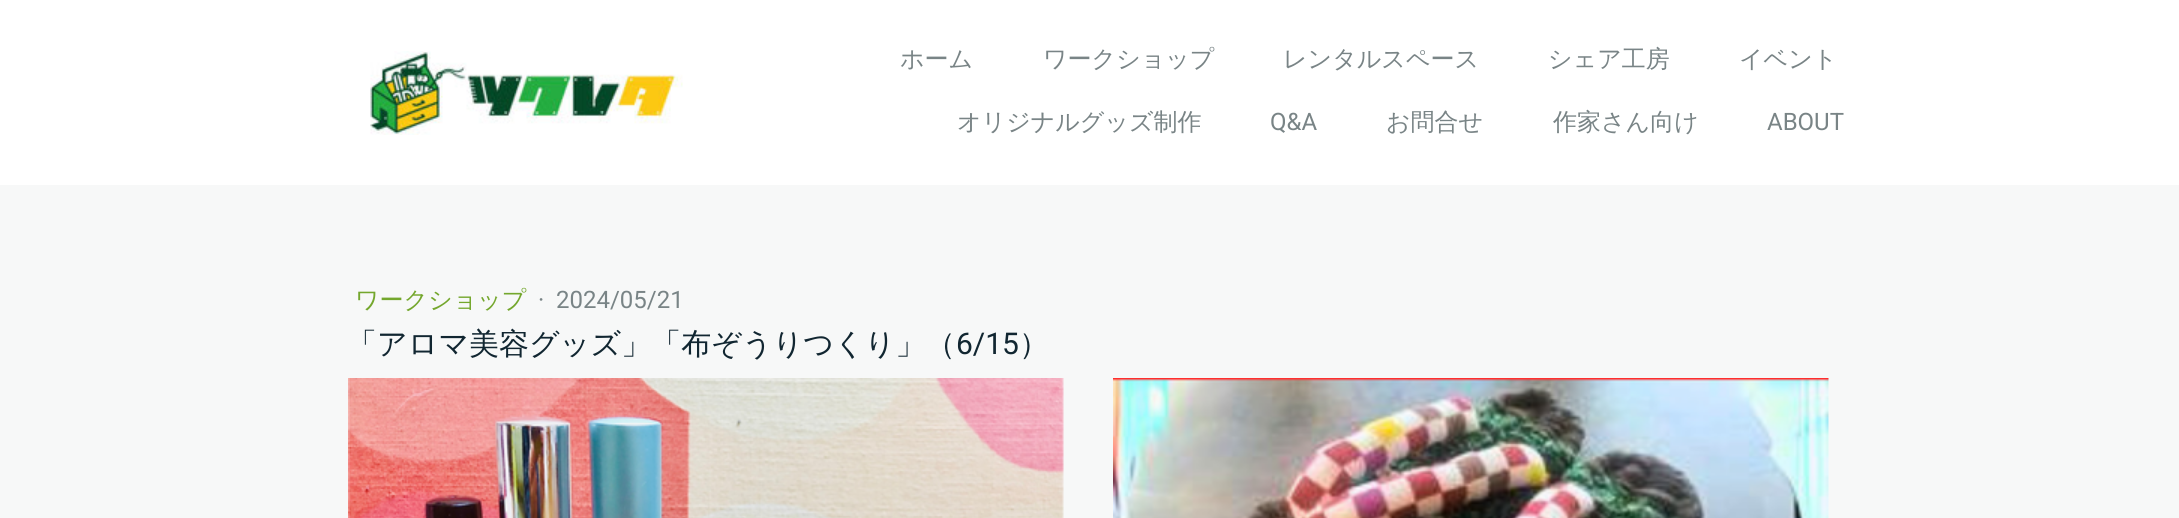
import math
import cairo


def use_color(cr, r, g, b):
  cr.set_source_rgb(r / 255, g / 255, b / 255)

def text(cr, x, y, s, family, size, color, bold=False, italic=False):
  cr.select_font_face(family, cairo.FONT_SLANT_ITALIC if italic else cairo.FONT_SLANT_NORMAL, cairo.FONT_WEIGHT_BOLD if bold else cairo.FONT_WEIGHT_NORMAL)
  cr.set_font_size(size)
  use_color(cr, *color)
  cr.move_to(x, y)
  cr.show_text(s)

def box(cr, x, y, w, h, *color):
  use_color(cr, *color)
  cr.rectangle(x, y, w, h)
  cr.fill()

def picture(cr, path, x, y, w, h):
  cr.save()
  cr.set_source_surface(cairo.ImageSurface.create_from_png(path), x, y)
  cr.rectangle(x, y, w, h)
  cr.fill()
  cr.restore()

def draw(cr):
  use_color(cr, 255, 255, 255)
  cr.paint()
  picture(cr, "img_01.png", 370, 51, 313, 84)
  box(cr, 0, 185, 2179, 333, 247, 248, 248)
  picture(cr, "img_02.png", 348, 378, 716, 140)
  picture(cr, "img_03.png", 1113, 378, 716, 140)
  text(cr, 900, 67, "ホーム", "WenQuanYi Zen Hei Medium", 24, (121, 132, 134))
  text(cr, 1043, 67, "ワークショップ", "WenQuanYi Zen Hei Medium", 24, (121, 132, 134))
  text(cr, 1283, 67, "レンタルスペース", "WenQuanYi Zen Hei Medium", 24, (121, 132, 134))
  text(cr, 1548, 67, "シェア工房", "WenQuanYi Zen Hei Medium", 24, (121, 132, 134))
  text(cr, 1739, 67, "イベント", "WenQuanYi Zen Hei Medium", 24, (121, 132, 134))
  text(cr, 957, 130, "オリジナルグッズ制作", "WenQuanYi Zen Hei Medium", 24, (121, 132, 134))
  text(cr, 1270, 130, "Q&A", "Roboto", 24, (121, 132, 134))
  text(cr, 1386, 130, "お問合せ", "WenQuanYi Zen Hei Medium", 24, (121, 132, 134))
  text(cr, 1553, 130, "作家さん向け", "WenQuanYi Zen Hei Medium", 24, (121, 132, 134))
  text(cr, 1767, 130, "ABOUT", "Roboto", 24, (121, 132, 134))
  text(cr, 355, 308, "ワークショップ", "WenQuanYi Zen Hei Medium", 24, (116, 167, 45))
  text(cr, 538, 308, "·", "Roboto", 24, (121, 132, 134))
  text(cr, 556, 308, "2024/05/21", "Roboto", 24, (121, 132, 134))
  text(cr, 347, 354, "「アロマ美容グッズ」「布ぞうりつくり」（", "WenQuanYi Zen Hei Medium", 30, (17, 38, 49))
  text(cr, 956, 354, "6/15", "Roboto", 30, (17, 38, 49))
  text(cr, 1019, 354, "）", "WenQuanYi Zen Hei Medium", 30, (17, 38, 49))


surface = cairo.ImageSurface(cairo.FORMAT_RGB24, 2179, 518)
cr = cairo.Context(surface)
options = cairo.FontOptions()
options.set_hint_metrics(cairo.HINT_METRICS_OFF)
options.set_hint_style(cairo.HINT_STYLE_NONE)
cr.set_font_options(options)
cr.set_miter_limit(4)
draw(cr)
surface.write_to_png("out.png")
